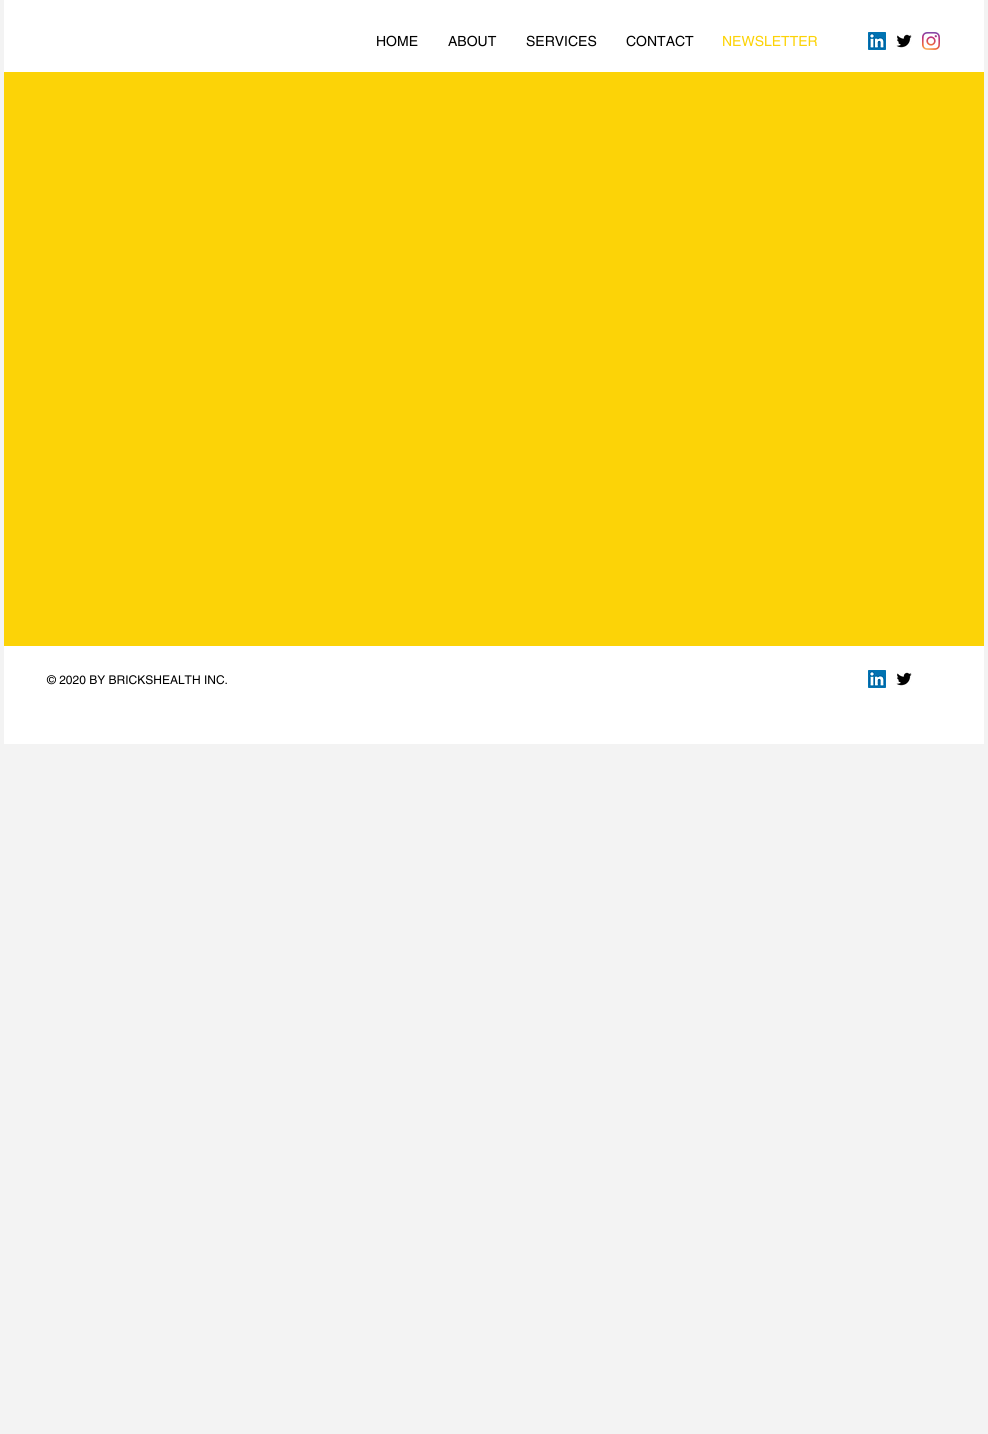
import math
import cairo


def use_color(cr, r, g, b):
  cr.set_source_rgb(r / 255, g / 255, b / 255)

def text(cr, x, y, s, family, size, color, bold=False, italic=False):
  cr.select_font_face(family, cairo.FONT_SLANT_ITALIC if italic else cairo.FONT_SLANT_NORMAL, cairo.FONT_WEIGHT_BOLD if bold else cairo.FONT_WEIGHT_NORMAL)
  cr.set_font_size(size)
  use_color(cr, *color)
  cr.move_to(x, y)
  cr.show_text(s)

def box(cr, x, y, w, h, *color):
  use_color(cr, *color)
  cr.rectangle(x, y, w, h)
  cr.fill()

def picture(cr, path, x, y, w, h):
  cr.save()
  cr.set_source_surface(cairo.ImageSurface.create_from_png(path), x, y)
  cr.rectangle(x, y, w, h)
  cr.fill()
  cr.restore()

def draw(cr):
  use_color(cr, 243, 243, 243)
  cr.paint()
  box(cr, 4, 0, 980, 72, 255, 255, 255)
  picture(cr, "img_01.png", 868, 32, 18, 18)
  picture(cr, "img_02.png", 896, 34, 16, 14)
  picture(cr, "img_03.png", 922, 32, 18, 18)
  box(cr, 4, 72, 980, 574, 252, 211, 7)
  box(cr, 4, 646, 980, 98, 255, 255, 255)
  picture(cr, "img_01.png", 868, 670, 18, 18)
  picture(cr, "img_02.png", 896, 672, 16, 14)
  text(cr, 376, 46, "HOME", "helvetica", 14, (0, 0, 0))
  text(cr, 448, 46, "ABOUT", "helvetica", 14, (0, 0, 0))
  text(cr, 526, 46, "SERVICES", "helvetica", 14, (0, 0, 0))
  text(cr, 626, 46, "CONTACT", "helvetica", 14, (0, 0, 0))
  text(cr, 722, 46, "NEWSLETTER", "helvetica", 14, (252, 211, 7))
  text(cr, 47, 684, "© 2020 BY BRICKSHEALTH INC.", "helvetica", 12, (0, 0, 0))


surface = cairo.ImageSurface(cairo.FORMAT_RGB24, 988, 1434)
cr = cairo.Context(surface)
options = cairo.FontOptions()
options.set_hint_metrics(cairo.HINT_METRICS_OFF)
options.set_hint_style(cairo.HINT_STYLE_NONE)
cr.set_font_options(options)
cr.set_miter_limit(4)
draw(cr)
surface.write_to_png("out.png")
